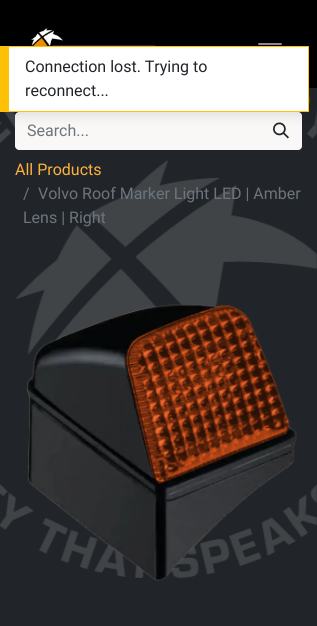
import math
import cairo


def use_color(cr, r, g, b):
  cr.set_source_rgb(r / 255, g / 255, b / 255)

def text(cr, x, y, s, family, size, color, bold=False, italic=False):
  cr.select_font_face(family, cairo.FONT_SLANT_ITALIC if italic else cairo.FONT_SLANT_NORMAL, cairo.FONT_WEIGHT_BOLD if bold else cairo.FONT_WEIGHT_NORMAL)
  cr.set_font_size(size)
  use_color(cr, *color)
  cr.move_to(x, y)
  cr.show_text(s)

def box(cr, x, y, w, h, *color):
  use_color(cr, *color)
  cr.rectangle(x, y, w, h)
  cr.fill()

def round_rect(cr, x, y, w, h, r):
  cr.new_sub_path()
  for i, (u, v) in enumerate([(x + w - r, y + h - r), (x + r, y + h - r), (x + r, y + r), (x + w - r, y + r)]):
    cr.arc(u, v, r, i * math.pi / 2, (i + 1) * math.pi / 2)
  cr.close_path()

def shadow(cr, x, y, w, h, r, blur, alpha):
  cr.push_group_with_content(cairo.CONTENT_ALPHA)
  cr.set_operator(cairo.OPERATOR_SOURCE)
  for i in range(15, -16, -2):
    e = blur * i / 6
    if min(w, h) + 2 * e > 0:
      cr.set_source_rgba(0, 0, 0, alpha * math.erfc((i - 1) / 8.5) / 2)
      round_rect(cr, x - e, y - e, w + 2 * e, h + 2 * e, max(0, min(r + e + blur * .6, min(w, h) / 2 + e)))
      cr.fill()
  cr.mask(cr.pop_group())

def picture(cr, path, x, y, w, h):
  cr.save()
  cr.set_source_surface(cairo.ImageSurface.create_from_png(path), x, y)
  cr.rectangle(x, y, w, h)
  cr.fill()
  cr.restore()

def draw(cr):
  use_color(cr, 33, 37, 41)
  cr.paint()
  picture(cr, "img_01.png", 0, 96, 317, 482)
  box(cr, 0, 0, 317, 88, 0, 0, 0)
  picture(cr, "img_02.png", 31, 28, 125, 18)
  picture(cr, "img_03.png", 258, 43, 24, 2)
  use_color(cr, 249, 248, 246)
  cr.new_path()
  cr.move_to(19, 112)
  cr.line_to(261, 112)
  cr.line_to(261, 150)
  cr.line_to(19, 150)
  cr.curve_to(17, 150, 15, 148, 15, 146)
  cr.line_to(15, 116)
  cr.curve_to(15, 114, 17, 112, 19, 112)
  cr.close_path()
  cr.fill()
  cr.new_path()
  cr.move_to(260.5, 112.5)
  cr.line_to(298, 112.5)
  cr.curve_to(300, 112.5, 301.5, 114, 301.5, 116)
  cr.line_to(301.5, 146)
  cr.curve_to(301.5, 148, 300, 149.5, 298, 149.5)
  cr.line_to(260.5, 149.5)
  cr.close_path()
  cr.fill_preserve()
  cr.set_line_width(1)
  cr.stroke()
  picture(cr, "img_04.png", 273, 122, 16, 17)
  use_color(cr, 0, 0, 0)
  shadow(cr, -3, 50, 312, 66, 0, 6, 0.1)
  box(cr, 9, 47, 299, 64, 255, 255, 255)
  box(cr, 9, 46, 300, 1, 255, 193, 7)
  box(cr, 308, 46, 1, 66, 255, 193, 7)
  box(cr, 9, 111, 300, 1, 255, 193, 7)
  box(cr, 0, 46, 9, 66, 255, 193, 7)
  picture(cr, "img_05.png", 27, 304, 270, 277)
  text(cr, 25, 72, "Connection lost. Trying to", "Roboto", 16, (33, 37, 41))
  text(cr, 25, 96, "reconnect...", "Roboto", 16, (33, 37, 41))
  text(cr, 27, 136, "Search...", "Roboto", 16, (108, 117, 125))
  text(cr, 15, 175, "All Products", "Roboto", 16, (254, 177, 63))
  text(cr, 23, 199, "/", "Roboto", 16, (108, 117, 125))
  text(cr, 38, 199, "Volvo Roof Marker Light LED | Amber", "Roboto", 16, (108, 117, 125))
  text(cr, 23, 223, "Lens | Right", "Roboto", 16, (108, 117, 125))


surface = cairo.ImageSurface(cairo.FORMAT_RGB24, 317, 626)
cr = cairo.Context(surface)
options = cairo.FontOptions()
options.set_hint_metrics(cairo.HINT_METRICS_OFF)
options.set_hint_style(cairo.HINT_STYLE_NONE)
cr.set_font_options(options)
cr.set_miter_limit(4)
draw(cr)
surface.write_to_png("out.png")
